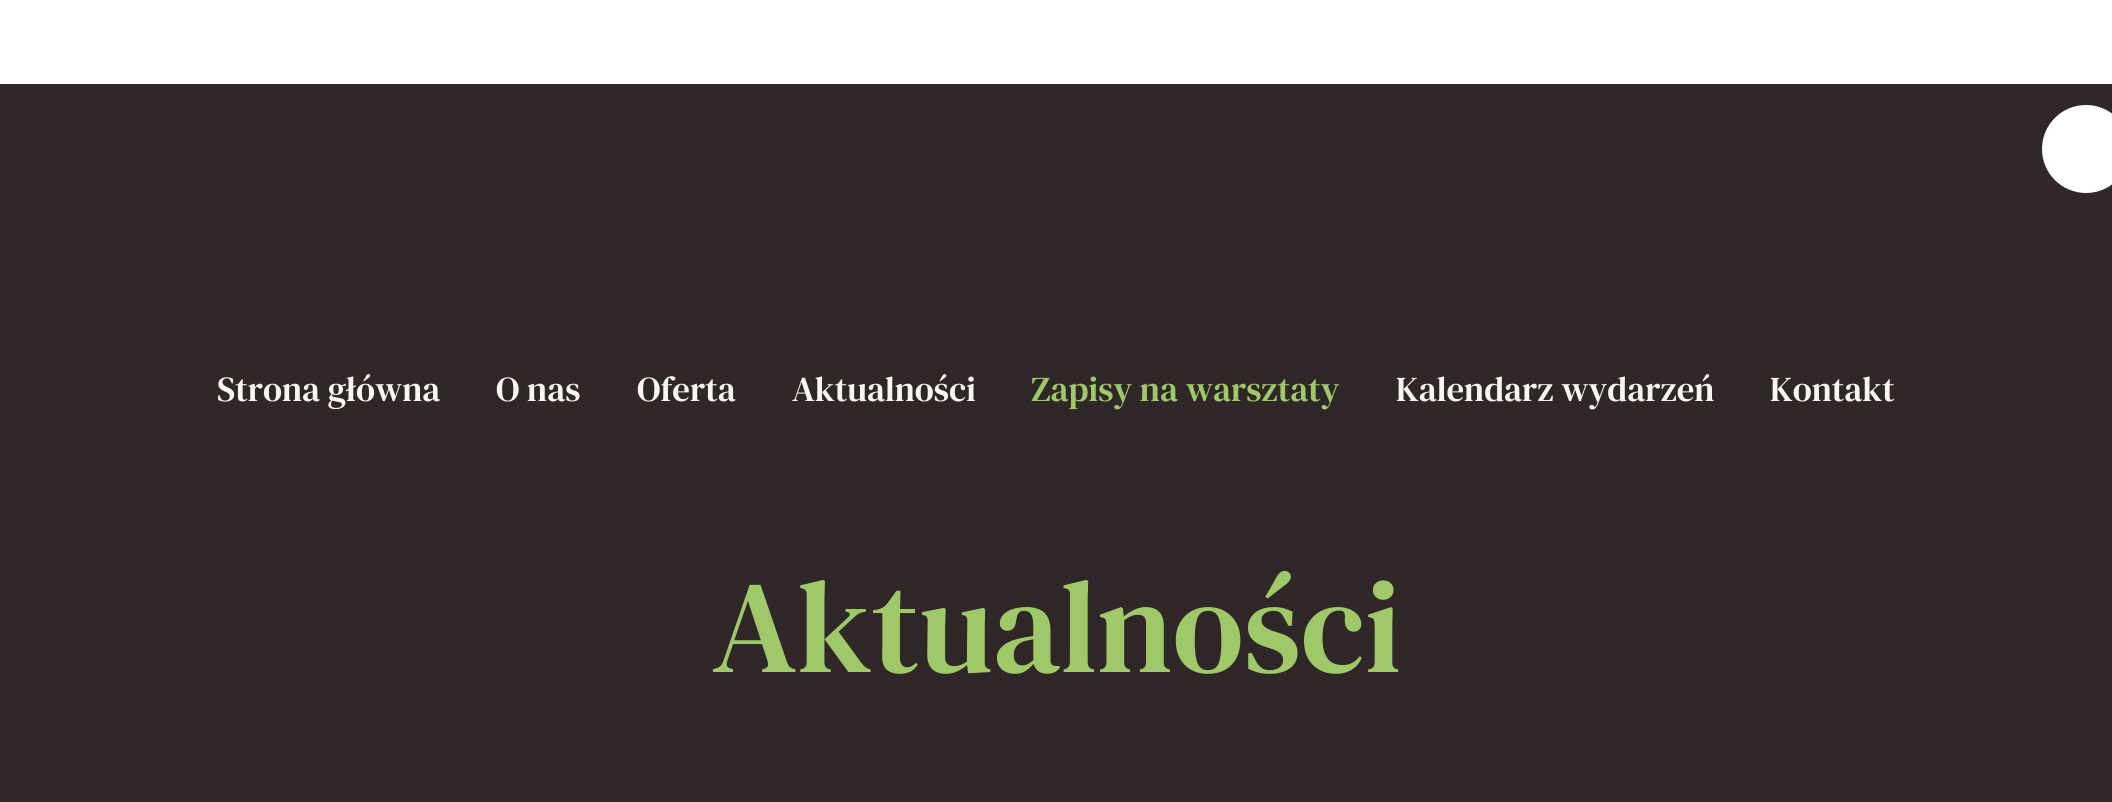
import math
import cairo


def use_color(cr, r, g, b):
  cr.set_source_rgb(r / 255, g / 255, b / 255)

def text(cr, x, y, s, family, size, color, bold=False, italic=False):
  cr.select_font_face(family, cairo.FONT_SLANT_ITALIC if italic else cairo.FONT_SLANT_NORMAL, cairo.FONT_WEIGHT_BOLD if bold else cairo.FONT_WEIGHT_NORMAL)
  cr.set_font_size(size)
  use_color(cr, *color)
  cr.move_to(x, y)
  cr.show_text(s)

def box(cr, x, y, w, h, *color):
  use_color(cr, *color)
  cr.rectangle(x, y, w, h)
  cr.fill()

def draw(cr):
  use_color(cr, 48, 40, 40)
  cr.paint()
  box(cr, 0, 0, 2112, 84, 255, 255, 255)
  cr.arc(2086, 149, 44, 0, 2 * math.pi)
  cr.fill()
  text(cr, 217, 401, "Strona główna", "DM Serif Text", 35, (250, 246, 241))
  text(cr, 496, 401, "O nas", "DM Serif Text", 35, (250, 246, 241))
  text(cr, 637, 401, "Oferta", "DM Serif Text", 35, (250, 246, 241))
  text(cr, 792, 401, "Aktualności", "DM Serif Text", 35, (250, 246, 241))
  text(cr, 1031, 401, "Zapisy na warsztaty", "DM Serif Text", 35, (159, 201, 104))
  text(cr, 1396, 401, "Kalendarz wydarzeń", "DM Serif Text", 35, (250, 246, 241))
  text(cr, 1770, 401, "Kontakt", "DM Serif Text", 35, (250, 246, 241))
  text(cr, 712, 672, "Aktualności", "DM Serif Text", 131.25, (159, 201, 104))


surface = cairo.ImageSurface(cairo.FORMAT_RGB24, 2112, 802)
cr = cairo.Context(surface)
options = cairo.FontOptions()
options.set_hint_metrics(cairo.HINT_METRICS_OFF)
options.set_hint_style(cairo.HINT_STYLE_NONE)
cr.set_font_options(options)
cr.set_miter_limit(4)
draw(cr)
surface.write_to_png("out.png")
